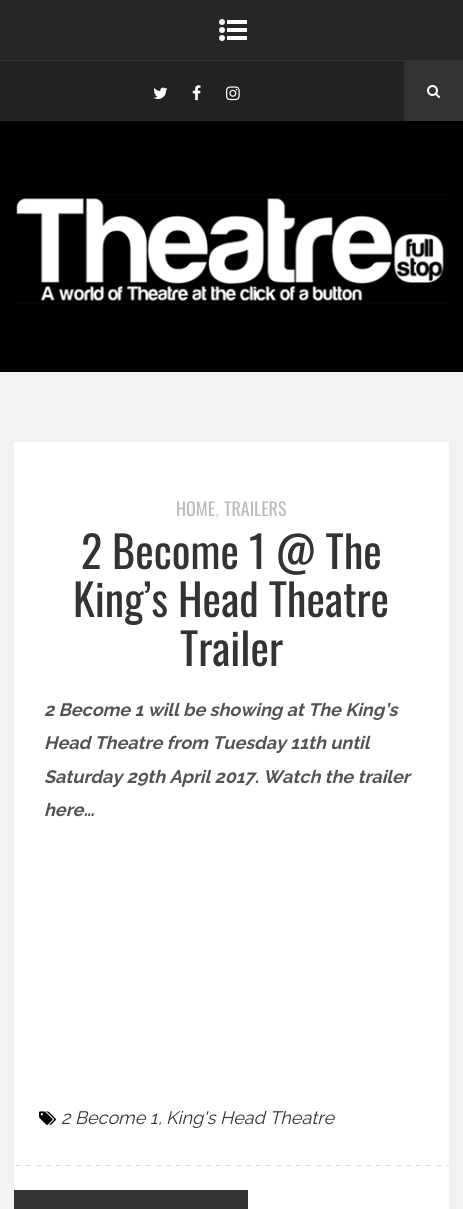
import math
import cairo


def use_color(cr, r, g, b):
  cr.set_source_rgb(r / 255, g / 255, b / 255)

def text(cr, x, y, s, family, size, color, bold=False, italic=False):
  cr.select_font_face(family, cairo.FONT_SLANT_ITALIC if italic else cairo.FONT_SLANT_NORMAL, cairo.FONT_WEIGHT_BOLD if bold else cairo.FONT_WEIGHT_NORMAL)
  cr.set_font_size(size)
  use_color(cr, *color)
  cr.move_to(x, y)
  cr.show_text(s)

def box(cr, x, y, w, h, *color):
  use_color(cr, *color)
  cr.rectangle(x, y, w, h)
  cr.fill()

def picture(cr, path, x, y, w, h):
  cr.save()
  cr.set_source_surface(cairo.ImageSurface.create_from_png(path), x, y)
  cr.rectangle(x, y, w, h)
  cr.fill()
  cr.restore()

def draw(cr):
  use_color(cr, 242, 242, 242)
  cr.paint()
  box(cr, 0, 0, 463, 60, 38, 38, 38)
  picture(cr, "img_01.png", 219, 19, 28, 22)
  box(cr, 0, 61, 404, 60, 34, 34, 34)
  box(cr, 0, 60, 463, 1, 51, 51, 51)
  picture(cr, "img_02.png", 153, 87, 15, 12)
  picture(cr, "img_03.png", 192, 85, 9, 16)
  picture(cr, "img_04.png", 226, 86, 14, 15)
  box(cr, 404, 61, 59, 60, 51, 51, 51)
  picture(cr, "img_05.png", 427, 85, 13, 13)
  box(cr, 0, 121, 463, 251, 0, 0, 0)
  picture(cr, "img_06.png", 14, 194, 435, 110)
  box(cr, 14, 442, 435, 767, 255, 255, 255)
  picture(cr, "img_07.png", 39, 1111, 17, 14)
  picture(cr, "img_08.png", 16, 1165, 433, 1)
  box(cr, 14, 1190, 234, 19, 51, 51, 51)
  text(cr, 176, 516, "HOME", "Oswald", 18, (187, 187, 187))
  text(cr, 215, 516, ",", "Raleway", 18, (187, 187, 187), italic=True)
  text(cr, 224, 516, "TRAILERS", "Oswald", 18, (187, 187, 187))
  text(cr, 81, 569, "2 Become 1 @ The", "Oswald", 44, (51, 51, 51))
  text(cr, 73, 617, "King’s Head Theatre", "Oswald", 44, (51, 51, 51))
  text(cr, 180, 666, "Trailer", "Oswald", 44, (51, 51, 51))
  text(cr, 44, 716, "2 Become 1 will be showing at The King’s", "Raleway", 18, (82, 84, 82), bold=True, italic=True)
  text(cr, 44, 749, "Head Theatre from Tuesday 11th until", "Raleway", 18, (82, 84, 82), bold=True, italic=True)
  text(cr, 44, 783, "Saturday 29th April 2017. Watch the trailer", "Raleway", 18, (82, 84, 82), bold=True, italic=True)
  text(cr, 44, 816, "here…", "Raleway", 18, (82, 84, 82), bold=True, italic=True)
  text(cr, 61, 1124, "2 Become 1", "Raleway", 18, (51, 51, 51), italic=True)
  text(cr, 158, 1124, ",", "Raleway", 18, (82, 84, 82), italic=True)
  text(cr, 166, 1124, "King's Head Theatre", "Raleway", 18, (51, 51, 51), italic=True)


surface = cairo.ImageSurface(cairo.FORMAT_RGB24, 463, 1209)
cr = cairo.Context(surface)
options = cairo.FontOptions()
options.set_hint_metrics(cairo.HINT_METRICS_OFF)
options.set_hint_style(cairo.HINT_STYLE_NONE)
cr.set_font_options(options)
cr.set_miter_limit(4)
draw(cr)
surface.write_to_png("out.png")
